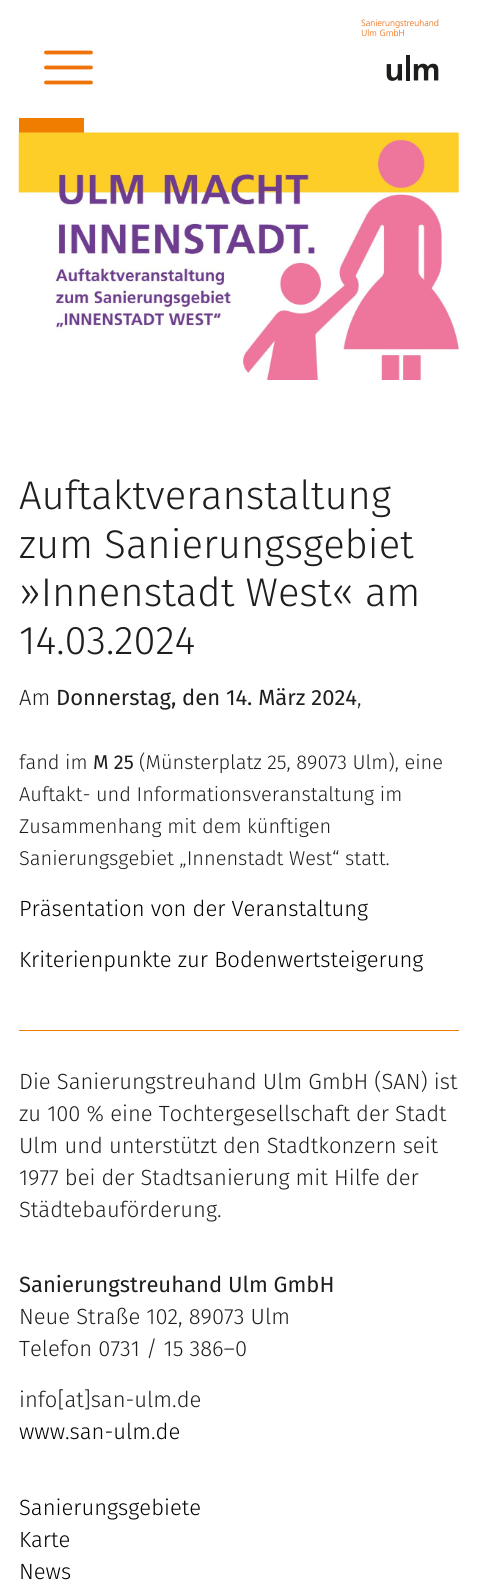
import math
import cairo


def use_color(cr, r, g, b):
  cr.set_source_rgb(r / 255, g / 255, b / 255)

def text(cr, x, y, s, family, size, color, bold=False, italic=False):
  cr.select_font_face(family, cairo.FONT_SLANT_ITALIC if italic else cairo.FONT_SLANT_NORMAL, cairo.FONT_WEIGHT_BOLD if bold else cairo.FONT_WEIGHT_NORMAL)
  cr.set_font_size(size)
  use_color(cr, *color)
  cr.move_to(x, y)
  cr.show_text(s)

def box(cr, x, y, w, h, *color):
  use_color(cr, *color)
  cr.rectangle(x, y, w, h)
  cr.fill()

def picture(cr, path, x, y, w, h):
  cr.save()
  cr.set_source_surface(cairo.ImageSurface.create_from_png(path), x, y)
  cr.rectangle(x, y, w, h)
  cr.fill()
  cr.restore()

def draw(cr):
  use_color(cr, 255, 255, 255)
  cr.paint()
  cr.new_path()
  cr.move_to(46, 52.5)
  cr.line_to(91, 52.5)
  cr.move_to(46, 67.5)
  cr.line_to(91, 67.5)
  cr.move_to(46, 82.5)
  cr.line_to(91, 82.5)
  use_color(cr, 240, 115, 10)
  cr.set_line_width(3.8)
  cr.set_line_cap(cairo.LINE_CAP_ROUND)
  cr.stroke()
  picture(cr, "img_01.png", 361, 19, 78, 62)
  box(cr, 19, 118, 65, 15, 238, 125, 0)
  picture(cr, "img_02.png", 18, 132, 441, 248)
  box(cr, 19, 1030, 440, 1, 238, 125, 0)
  text(cr, 19, 509, "Auftaktveranstaltung", "Fira Sans Light", 40, (30, 30, 30))
  text(cr, 19, 558, "zum Sanierungsgebiet", "Fira Sans Light", 40, (30, 30, 30))
  text(cr, 19, 606, "»Innenstadt West« am", "Fira Sans Light", 40, (30, 30, 30))
  text(cr, 19, 654, "14.03.2024", "Fira Sans Light", 40, (30, 30, 30))
  text(cr, 19, 705, "Am", "Fira Sans Light", 22, (30, 30, 30))
  text(cr, 56, 705, "Donnerstag, den 14. März 2024", "Fira Sans", 22, (30, 30, 30))
  text(cr, 357, 705, ",", "Fira Sans Light", 22, (30, 30, 30))
  text(cr, 19, 769, "fand im", "Fira Sans Light", 20, (30, 30, 30))
  text(cr, 93, 769, "M 25", "Fira Sans", 20, (30, 30, 30))
  text(cr, 139, 769, "(Münsterplatz 25, 89073 Ulm), eine", "Fira Sans Light", 20, (30, 30, 30))
  text(cr, 19, 801, "Auftakt- und Informationsveranstaltung im", "Fira Sans Light", 20, (30, 30, 30))
  text(cr, 19, 833, "Zusammenhang mit dem künftigen", "Fira Sans Light", 20, (30, 30, 30))
  text(cr, 19, 865, "Sanierungsgebiet „Innenstadt West“ statt.", "Fira Sans Light", 20, (30, 30, 30))
  text(cr, 19, 916, "Präsentation von der Veranstaltung", "Fira Sans Light", 22, (0, 0, 0))
  text(cr, 19, 967, "Kriterienpunkte zur Bodenwertsteigerung", "Fira Sans Light", 22, (0, 0, 0))
  text(cr, 19, 1089, "Die Sanierungstreuhand Ulm GmbH (SAN) ist", "Fira Sans Light", 22, (30, 30, 30))
  text(cr, 19, 1121, "zu 100 % eine Tochtergesellschaft der Stadt", "Fira Sans Light", 22, (30, 30, 30))
  text(cr, 19, 1153, "Ulm und unterstützt den Stadtkonzern seit", "Fira Sans Light", 22, (30, 30, 30))
  text(cr, 19, 1185, "1977 bei der Stadtsanierung mit Hilfe der", "Fira Sans Light", 22, (30, 30, 30))
  text(cr, 19, 1217, "Städtebauförderung.", "Fira Sans Light", 22, (30, 30, 30))
  text(cr, 19, 1292, "Sanierungstreuhand Ulm GmbH", "Fira Sans", 22, (30, 30, 30))
  text(cr, 19, 1324, "Neue Straße 102, 89073 Ulm", "Fira Sans Light", 22, (30, 30, 30))
  text(cr, 19, 1356, "Telefon 0731 / 15 386–0", "Fira Sans Light", 22, (30, 30, 30))
  text(cr, 19, 1407, "info[at]san-ulm.de", "Fira Sans Light", 22, (30, 30, 30))
  text(cr, 19, 1439, "www.san-ulm.de", "Fira Sans Light", 22, (0, 0, 0))
  text(cr, 19, 1515, "Sanierungsgebiete", "Fira Sans Light", 22, (0, 0, 0))
  text(cr, 19, 1547, "Karte", "Fira Sans Light", 22, (0, 0, 0))
  text(cr, 19, 1579, "News", "Fira Sans Light", 22, (0, 0, 0))


surface = cairo.ImageSurface(cairo.FORMAT_RGB24, 477, 1581)
cr = cairo.Context(surface)
options = cairo.FontOptions()
options.set_hint_metrics(cairo.HINT_METRICS_OFF)
options.set_hint_style(cairo.HINT_STYLE_NONE)
cr.set_font_options(options)
cr.set_miter_limit(4)
draw(cr)
surface.write_to_png("out.png")
